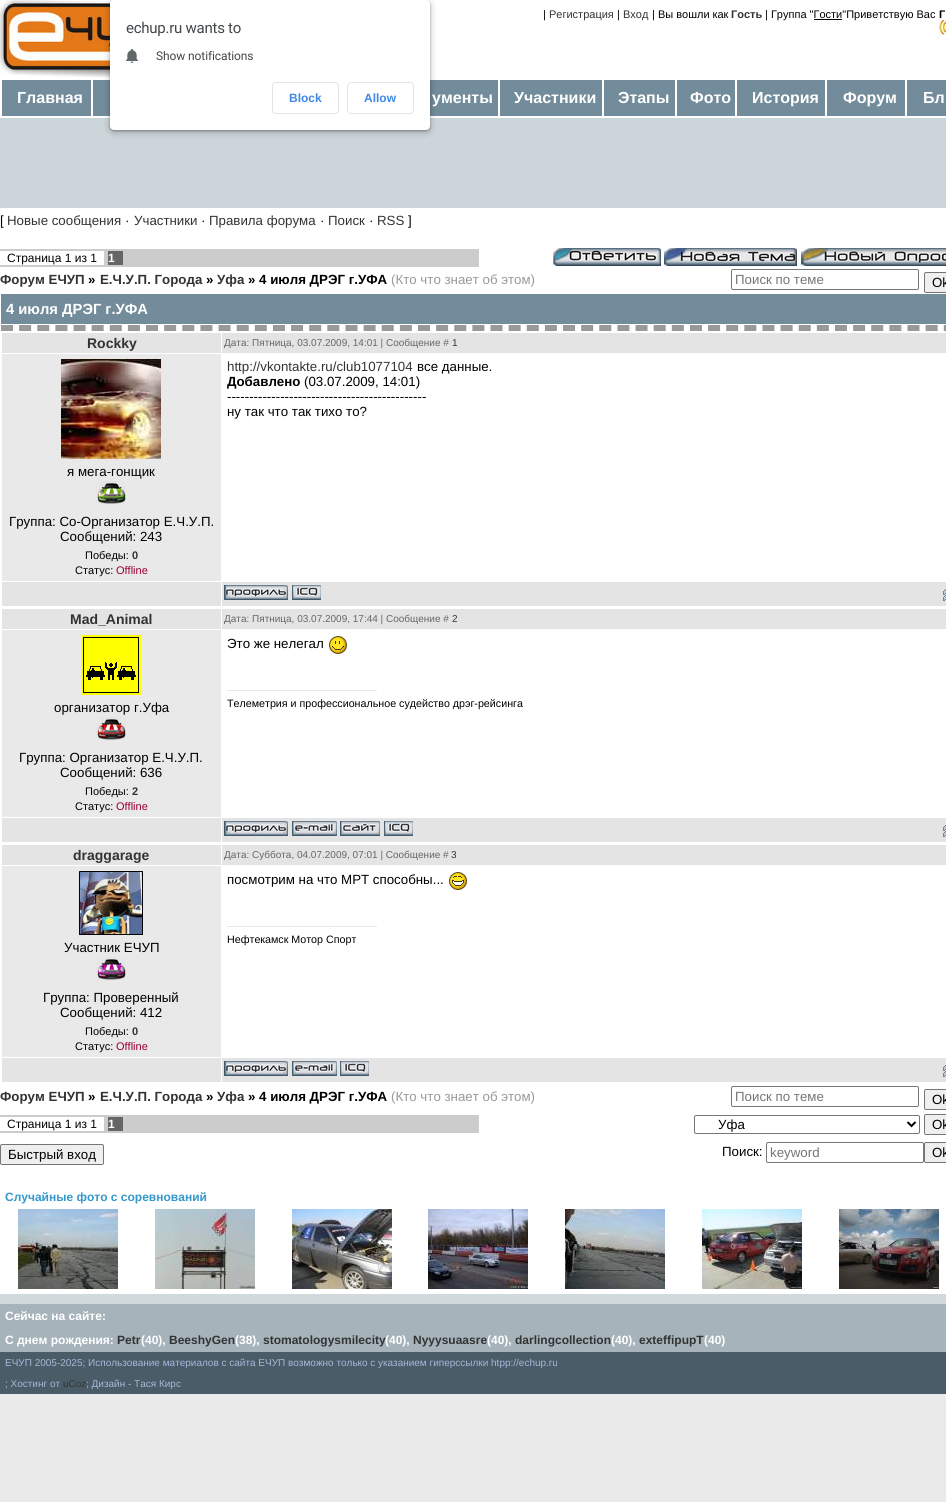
import math
import cairo


def use_color(cr, r, g, b):
  cr.set_source_rgb(r / 255, g / 255, b / 255)

def text(cr, x, y, s, family, size, color, bold=False, italic=False):
  cr.select_font_face(family, cairo.FONT_SLANT_ITALIC if italic else cairo.FONT_SLANT_NORMAL, cairo.FONT_WEIGHT_BOLD if bold else cairo.FONT_WEIGHT_NORMAL)
  cr.set_font_size(size)
  use_color(cr, *color)
  cr.move_to(x, y)
  cr.show_text(s)

def spaced_text(cr, x, y, s, letter, word):
  cr.move_to(x, y)
  for ch in s:
    cr.show_text(ch)
    cr.rel_move_to(letter + word * (ch == ' '), 0)

def box(cr, x, y, w, h, *color):
  use_color(cr, *color)
  cr.rectangle(x, y, w, h)
  cr.fill()

def round_rect(cr, x, y, w, h, r):
  cr.new_sub_path()
  for i, (u, v) in enumerate([(x + w - r, y + h - r), (x + r, y + h - r), (x + r, y + r), (x + w - r, y + r)]):
    cr.arc(u, v, r, i * math.pi / 2, (i + 1) * math.pi / 2)
  cr.close_path()

def shadow(cr, x, y, w, h, r, blur, alpha):
  cr.push_group_with_content(cairo.CONTENT_ALPHA)
  cr.set_operator(cairo.OPERATOR_SOURCE)
  for i in range(15, -16, -2):
    e = blur * i / 6
    if min(w, h) + 2 * e > 0:
      cr.set_source_rgba(0, 0, 0, alpha * math.erfc((i - 1) / 8.5) / 2)
      round_rect(cr, x - e, y - e, w + 2 * e, h + 2 * e, max(0, min(r + e + blur * .6, min(w, h) / 2 + e)))
      cr.fill()
  cr.mask(cr.pop_group())

def picture(cr, path, x, y, w, h):
  cr.save()
  cr.set_source_surface(cairo.ImageSurface.create_from_png(path), x, y)
  cr.rectangle(x, y, w, h)
  cr.fill()
  cr.restore()

def draw(cr):
  use_color(cr, 234, 234, 234)
  cr.paint()
  box(cr, 0, 0, 946, 118, 255, 255, 255)
  picture(cr, "img_01.png", 0, 0, 114, 78)
  box(cr, 814, 19, 28, 1, 0, 0, 0)
  picture(cr, "img_02.png", 939, 20, 7, 20)
  box(cr, 2, 80, 89, 36, 115, 140, 155)
  box(cr, 93, 80, 17, 36, 115, 140, 155)
  box(cr, 430, 80, 68, 36, 115, 140, 155)
  box(cr, 500, 80, 102, 36, 115, 140, 155)
  box(cr, 604, 80, 71, 36, 115, 140, 155)
  box(cr, 677, 80, 58, 36, 115, 140, 155)
  box(cr, 737, 80, 88, 36, 115, 140, 155)
  box(cr, 827, 80, 78, 36, 115, 140, 155)
  box(cr, 907, 80, 39, 36, 115, 140, 155)
  box(cr, 0, 118, 946, 90, 204, 213, 217)
  use_color(cr, 0, 0, 0)
  shadow(cr, 108, 0, 324, 134, 6, 3, 0.15)
  shadow(cr, 110, 1, 320, 130, 4, 1, 0.3)
  use_color(cr, 255, 255, 255)
  round_rect(cr, 110, 0, 320, 130, 4)
  cr.fill()
  picture(cr, "img_03.png", 126, 49, 12, 14)
  round_rect(cr, 272.5, 82.5, 66, 31, 3.5)
  use_color(cr, 228, 228, 228)
  cr.set_line_width(1)
  cr.stroke()
  round_rect(cr, 347.5, 82.5, 66, 31, 3.5)
  cr.stroke()
  box(cr, 0, 208, 946, 1086, 255, 255, 255)
  box(cr, 0, 249, 479, 18, 204, 204, 204)
  box(cr, 0, 251, 104, 14, 255, 255, 255)
  box(cr, 108, 251, 15, 14, 102, 102, 102)
  picture(cr, "img_04.png", 553, 248, 108, 18)
  picture(cr, "img_05.png", 664, 248, 133, 18)
  picture(cr, "img_06.png", 801, 248, 145, 18)
  round_rect(cr, 731.5, 269.5, 187, 20, 1.5)
  use_color(cr, 118, 118, 118)
  cr.stroke()
  use_color(cr, 239, 239, 239)
  round_rect(cr, 924.5, 272.5, 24, 20, 1.5)
  cr.fill_preserve()
  use_color(cr, 118, 118, 118)
  cr.stroke()
  box(cr, 1, 294, 945, 30, 115, 140, 155)
  cr.new_path()
  cr.move_to(1, 328)
  cr.line_to(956, 328)
  use_color(cr, 153, 153, 153)
  cr.set_line_width(6)
  cr.set_dash([12, 6.13])
  cr.stroke()
  box(cr, 2, 333, 219, 20, 228, 228, 228)
  box(cr, 222, 333, 724, 20, 228, 228, 228)
  box(cr, 2, 354, 219, 227, 233, 233, 233)
  picture(cr, "img_07.png", 61, 359, 100, 100)
  picture(cr, "img_08.png", 96, 481, 30, 23)
  box(cr, 2, 582, 219, 24, 228, 228, 228)
  box(cr, 222, 582, 724, 24, 228, 228, 228)
  picture(cr, "img_09.png", 224, 585, 64, 15)
  picture(cr, "img_10.png", 292, 585, 29, 15)
  picture(cr, "img_11.png", 943, 589, 3, 12)
  box(cr, 2, 609, 219, 20, 228, 228, 228)
  box(cr, 222, 609, 724, 20, 228, 228, 228)
  picture(cr, "img_12.png", 329, 636, 18, 18)
  box(cr, 227, 690, 150, 1, 233, 233, 233)
  box(cr, 2, 630, 219, 187, 233, 233, 233)
  picture(cr, "img_13.png", 81, 635, 60, 60)
  picture(cr, "img_14.png", 96, 717, 30, 23)
  box(cr, 2, 818, 219, 24, 228, 228, 228)
  box(cr, 222, 818, 724, 24, 228, 228, 228)
  picture(cr, "img_09.png", 224, 821, 64, 15)
  picture(cr, "img_15.png", 292, 821, 45, 15)
  picture(cr, "img_16.png", 340, 821, 40, 15)
  picture(cr, "img_10.png", 384, 821, 29, 15)
  picture(cr, "img_11.png", 943, 825, 3, 12)
  box(cr, 2, 845, 219, 20, 228, 228, 228)
  box(cr, 222, 845, 724, 20, 228, 228, 228)
  picture(cr, "img_17.png", 449, 872, 18, 18)
  box(cr, 227, 926, 150, 1, 233, 233, 233)
  box(cr, 2, 866, 219, 191, 233, 233, 233)
  picture(cr, "img_18.png", 79, 871, 64, 64)
  picture(cr, "img_19.png", 96, 957, 30, 23)
  box(cr, 2, 1058, 219, 24, 228, 228, 228)
  box(cr, 222, 1058, 724, 24, 228, 228, 228)
  picture(cr, "img_09.png", 224, 1061, 64, 15)
  picture(cr, "img_15.png", 292, 1061, 45, 15)
  picture(cr, "img_10.png", 340, 1061, 29, 15)
  picture(cr, "img_11.png", 943, 1065, 3, 12)
  round_rect(cr, 731.5, 1086.5, 187, 20, 1.5)
  use_color(cr, 118, 118, 118)
  cr.set_line_width(1)
  cr.set_dash([])
  cr.stroke()
  use_color(cr, 239, 239, 239)
  round_rect(cr, 924.5, 1089.5, 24, 20, 1.5)
  cr.fill_preserve()
  use_color(cr, 118, 118, 118)
  cr.stroke()
  box(cr, 0, 1115, 479, 18, 204, 204, 204)
  box(cr, 0, 1117, 104, 14, 255, 255, 255)
  box(cr, 108, 1117, 15, 14, 102, 102, 102)
  round_rect(cr, 694.5, 1115.5, 225, 18, 1.5)
  use_color(cr, 118, 118, 118)
  cr.stroke()
  cr.new_path()
  cr.move_to(907.5, 1122)
  cr.line_to(911.5, 1126)
  cr.line_to(915.5, 1122)
  use_color(cr, 0, 0, 0)
  cr.set_line_width(2)
  cr.stroke()
  use_color(cr, 239, 239, 239)
  round_rect(cr, 924.5, 1114.5, 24, 20, 1.5)
  cr.fill_preserve()
  use_color(cr, 118, 118, 118)
  cr.set_line_width(1)
  cr.stroke()
  use_color(cr, 239, 239, 239)
  round_rect(cr, 0.5, 1144.5, 103, 20, 1.5)
  cr.fill_preserve()
  use_color(cr, 118, 118, 118)
  cr.stroke()
  round_rect(cr, 766.5, 1142.5, 157, 20, 1.5)
  cr.stroke()
  use_color(cr, 239, 239, 239)
  round_rect(cr, 924.5, 1142.5, 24, 20, 1.5)
  cr.fill_preserve()
  use_color(cr, 118, 118, 118)
  cr.stroke()
  picture(cr, "img_20.png", 18, 1209, 100, 80)
  picture(cr, "img_21.png", 155, 1209, 100, 80)
  picture(cr, "img_22.png", 292, 1209, 100, 80)
  picture(cr, "img_23.png", 428, 1209, 100, 80)
  picture(cr, "img_24.png", 565, 1209, 100, 80)
  picture(cr, "img_25.png", 702, 1209, 100, 80)
  picture(cr, "img_26.png", 839, 1209, 100, 80)
  box(cr, 0, 1294, 946, 10, 210, 217, 221)
  box(cr, 0, 1304, 946, 48, 166, 179, 187)
  box(cr, 0, 1352, 946, 42, 73, 92, 103)
  text(cr, 543, 18, "|", "Liberation Sans", 11, (0, 0, 0))
  text(cr, 549, 18, "Регистрация", "Liberation Sans", 11, (51, 51, 51))
  text(cr, 617, 18, "|", "Liberation Sans", 11, (0, 0, 0))
  text(cr, 623, 18, "Вход", "Liberation Sans", 11, (51, 51, 51))
  text(cr, 652, 18, "| Вы вошли как", "Liberation Sans", 11, (0, 0, 0))
  text(cr, 731, 18, "Гость", "Liberation Sans", 11, (51, 51, 51), bold=True)
  text(cr, 765, 18, "| Группа \"Гости\"Приветствую Вас", "Liberation Sans", 11, (0, 0, 0))
  text(cr, 939, 18, "Г", "Liberation Sans", 11, (0, 0, 0), bold=True)
  text(cr, 17, 103, "Главная", "Liberation Sans", 16, (255, 255, 255), bold=True)
  text(cr, 432, 103, "ументы", "Liberation Sans", 16, (255, 255, 255), bold=True)
  text(cr, 514, 103, "Участники", "Liberation Sans", 16, (255, 255, 255), bold=True)
  text(cr, 618, 103, "Этапы", "Liberation Sans", 16, (255, 255, 255), bold=True)
  text(cr, 690, 103, "Фото", "Liberation Sans", 16, (255, 255, 255), bold=True)
  text(cr, 752, 103, "История", "Liberation Sans", 16, (255, 255, 255), bold=True)
  text(cr, 843, 103, "Форум", "Liberation Sans", 16, (255, 255, 255), bold=True)
  text(cr, 923, 103, "Бл", "Liberation Sans", 16, (255, 255, 255), bold=True)
  cr.select_font_face("Roboto")
  cr.set_font_size(15)
  use_color(cr, 67, 71, 73)
  spaced_text(cr, 126, 33, "echup.ru wants to", -0.25, 0)
  cr.set_font_size(12)
  spaced_text(cr, 156, 60, "Show notifications", -0.1, 0)
  text(cr, 289, 102, "Block", "Liberation Sans", 12, (64, 137, 232), bold=True)
  text(cr, 364, 102, "Allow", "Liberation Sans", 12, (64, 137, 232), bold=True)
  text(cr, 0, 225, "[", "Liberation Sans", 13.3, (0, 0, 0))
  text(cr, 7, 225, "Новые сообщения", "Liberation Sans", 13.3, (51, 51, 51))
  text(cr, 125, 225, "·", "Liberation Sans", 13.3, (0, 0, 0))
  text(cr, 134, 225, "Участники", "Liberation Sans", 13.3, (51, 51, 51))
  text(cr, 201, 225, "·", "Liberation Sans", 13.3, (0, 0, 0))
  text(cr, 209, 225, "Правила форума", "Liberation Sans", 13.3, (51, 51, 51))
  text(cr, 320, 225, "·", "Liberation Sans", 13.3, (0, 0, 0))
  text(cr, 328, 225, "Поиск", "Liberation Sans", 13.3, (51, 51, 51))
  text(cr, 369, 225, "·", "Liberation Sans", 13.3, (0, 0, 0))
  text(cr, 377, 225, "RSS", "Liberation Sans", 13.3, (51, 51, 51))
  text(cr, 408, 225, "]", "Liberation Sans", 13.3, (0, 0, 0))
  text(cr, 7, 262, "Страница 1 из 1", "Liberation Sans", 12, (0, 0, 0))
  text(cr, 108, 262, "1", "Liberation Sans", 12, (255, 255, 255), bold=True)
  text(cr, 0, 284, "Форум ЕЧУП", "Liberation Sans", 13.3, (51, 51, 51), bold=True)
  text(cr, 88, 284, "»", "Liberation Sans", 13.3, (0, 0, 0), bold=True)
  text(cr, 100, 284, "Е.Ч.У.П. Города", "Liberation Sans", 13.3, (51, 51, 51), bold=True)
  text(cr, 206, 284, "»", "Liberation Sans", 13.3, (0, 0, 0), bold=True)
  text(cr, 217, 284, "Уфа", "Liberation Sans", 13.3, (51, 51, 51), bold=True)
  text(cr, 248, 284, "» 4 июля ДРЭГ г.УФА", "Liberation Sans", 13.3, (0, 0, 0), bold=True)
  text(cr, 391, 284, "(Кто что знает об этом)", "Liberation Sans", 13.3, (153, 153, 153))
  text(cr, 735, 284, "Поиск по теме", "Liberation Sans", 13.3, (117, 117, 117))
  text(cr, 932, 287, "Ok", "Liberation Sans", 13.3, (0, 0, 0))
  text(cr, 6, 314, "4 июля ДРЭГ г.УФА", "Liberation Sans", 14.75, (255, 255, 255), bold=True)
  text(cr, 87, 348, "Rockky", "Liberation Sans", 14, (51, 51, 51), bold=True)
  text(cr, 224, 346, "Дата: Пятница, 03.07.2009, 14:01 | Сообщение #", "Liberation Sans", 10, (102, 102, 102))
  text(cr, 452, 346, "1", "Liberation Sans", 10, (51, 51, 51))
  text(cr, 227, 371, "http://vkontakte.ru/club1077104", "Liberation Sans", 13.3, (51, 51, 51))
  text(cr, 417, 371, "все данные.", "Liberation Sans", 13.3, (0, 0, 0))
  text(cr, 227, 386, "Добавлено", "Liberation Sans", 13.3, (0, 0, 0), bold=True)
  text(cr, 304, 386, "(03.07.2009, 14:01)", "Liberation Sans", 13.3, (0, 0, 0))
  text(cr, 227, 401, "---------------------------------------------", "Liberation Sans", 13.3, (0, 0, 0))
  text(cr, 227, 416, "ну так что так тихо то?", "Liberation Sans", 13.3, (0, 0, 0))
  text(cr, 67, 476, "я мега-гонщик", "Liberation Sans", 13.3, (0, 0, 0))
  text(cr, 9, 526, "Группа: Со-Организатор Е.Ч.У.П.", "Liberation Sans", 13.3, (0, 0, 0))
  text(cr, 60, 541, "Сообщений: 243", "Liberation Sans", 13.3, (0, 0, 0))
  text(cr, 85, 559, "Победы:", "Liberation Sans", 11, (0, 0, 0))
  text(cr, 132, 559, "0", "Liberation Sans", 11, (51, 51, 51), bold=True)
  text(cr, 75, 574, "Статус:", "Liberation Sans", 11, (0, 0, 0))
  text(cr, 116, 574, "Offline", "Liberation Sans", 11, (153, 0, 51))
  text(cr, 70, 624, "Mad_Animal", "Liberation Sans", 14, (51, 51, 51), bold=True)
  text(cr, 224, 622, "Дата: Пятница, 03.07.2009, 17:44 | Сообщение #", "Liberation Sans", 10, (102, 102, 102))
  text(cr, 452, 622, "2", "Liberation Sans", 10, (51, 51, 51))
  text(cr, 227, 648, "Это же нелегал", "Liberation Sans", 13.3, (0, 0, 0))
  text(cr, 227, 707, "Телеметрия и профессиональное судейство дрэг-рейсинга", "Liberation Sans", 10.7, (0, 0, 0))
  text(cr, 54, 712, "организатор г.Уфа", "Liberation Sans", 13.3, (0, 0, 0))
  text(cr, 19, 762, "Группа: Организатор Е.Ч.У.П.", "Liberation Sans", 13.3, (0, 0, 0))
  text(cr, 60, 777, "Сообщений: 636", "Liberation Sans", 13.3, (0, 0, 0))
  text(cr, 85, 795, "Победы:", "Liberation Sans", 11, (0, 0, 0))
  text(cr, 132, 795, "2", "Liberation Sans", 11, (51, 51, 51), bold=True)
  text(cr, 75, 810, "Статус:", "Liberation Sans", 11, (0, 0, 0))
  text(cr, 116, 810, "Offline", "Liberation Sans", 11, (153, 0, 51))
  text(cr, 73, 860, "draggarage", "Liberation Sans", 14, (51, 51, 51), bold=True)
  text(cr, 224, 858, "Дата: Суббота, 04.07.2009, 07:01 | Сообщение #", "Liberation Sans", 10, (102, 102, 102))
  text(cr, 451, 858, "3", "Liberation Sans", 10, (51, 51, 51))
  text(cr, 227, 884, "посмотрим на что МРТ способны...", "Liberation Sans", 13.3, (0, 0, 0))
  text(cr, 227, 943, "Нефтекамск Мотор Спорт", "Liberation Sans", 10.7, (0, 0, 0))
  text(cr, 64, 952, "Участник ЕЧУП", "Liberation Sans", 13.3, (0, 0, 0))
  text(cr, 43, 1002, "Группа: Проверенный", "Liberation Sans", 13.3, (0, 0, 0))
  text(cr, 60, 1017, "Сообщений: 412", "Liberation Sans", 13.3, (0, 0, 0))
  text(cr, 85, 1035, "Победы:", "Liberation Sans", 11, (0, 0, 0))
  text(cr, 132, 1035, "0", "Liberation Sans", 11, (51, 51, 51), bold=True)
  text(cr, 75, 1050, "Статус:", "Liberation Sans", 11, (0, 0, 0))
  text(cr, 116, 1050, "Offline", "Liberation Sans", 11, (153, 0, 51))
  text(cr, 0, 1101, "Форум ЕЧУП", "Liberation Sans", 13.3, (51, 51, 51), bold=True)
  text(cr, 88, 1101, "»", "Liberation Sans", 13.3, (0, 0, 0), bold=True)
  text(cr, 100, 1101, "Е.Ч.У.П. Города", "Liberation Sans", 13.3, (51, 51, 51), bold=True)
  text(cr, 206, 1101, "»", "Liberation Sans", 13.3, (0, 0, 0), bold=True)
  text(cr, 217, 1101, "Уфа", "Liberation Sans", 13.3, (51, 51, 51), bold=True)
  text(cr, 248, 1101, "» 4 июля ДРЭГ г.УФА", "Liberation Sans", 13.3, (0, 0, 0), bold=True)
  text(cr, 391, 1101, "(Кто что знает об этом)", "Liberation Sans", 13.3, (153, 153, 153))
  text(cr, 735, 1101, "Поиск по теме", "Liberation Sans", 13.3, (117, 117, 117))
  text(cr, 932, 1104, "Ok", "Liberation Sans", 13.3, (0, 0, 0))
  text(cr, 7, 1128, "Страница 1 из 1", "Liberation Sans", 12, (0, 0, 0))
  text(cr, 108, 1128, "1", "Liberation Sans", 12, (255, 255, 255), bold=True)
  text(cr, 718, 1129, "Уфа", "Liberation Sans", 13.3, (0, 0, 0))
  text(cr, 932, 1129, "Ok", "Liberation Sans", 13.3, (0, 0, 0))
  text(cr, 8, 1159, "Быстрый вход", "Liberation Sans", 13.3, (0, 0, 0))
  text(cr, 722, 1156, "Поиск:", "Liberation Sans", 13.3, (0, 0, 0))
  text(cr, 770, 1157, "keyword", "Liberation Sans", 13.3, (117, 117, 117))
  text(cr, 932, 1157, "Ok", "Liberation Sans", 13.3, (0, 0, 0))
  text(cr, 5, 1201, "Случайные фото с соревнований", "Liberation Sans", 12, (51, 153, 204), bold=True)
  text(cr, 5, 1320, "Сейчас на сайте:", "Liberation Sans", 12, (255, 255, 255), bold=True)
  text(cr, 5, 1344, "С днем рождения:", "Liberation Sans", 12, (255, 255, 255), bold=True)
  text(cr, 117, 1344, "Petr", "Liberation Sans", 12, (51, 51, 51), bold=True)
  text(cr, 141, 1344, "(40),", "Liberation Sans", 12, (255, 255, 255), bold=True)
  text(cr, 169, 1344, "BeeshyGen", "Liberation Sans", 12, (51, 51, 51), bold=True)
  text(cr, 235, 1344, "(38),", "Liberation Sans", 12, (255, 255, 255), bold=True)
  text(cr, 263, 1344, "stomatologysmilecity", "Liberation Sans", 12, (51, 51, 51), bold=True)
  text(cr, 385, 1344, "(40),", "Liberation Sans", 12, (255, 255, 255), bold=True)
  text(cr, 413, 1344, "Nyyysuaasre", "Liberation Sans", 12, (51, 51, 51), bold=True)
  text(cr, 487, 1344, "(40),", "Liberation Sans", 12, (255, 255, 255), bold=True)
  text(cr, 515, 1344, "darlingcollection", "Liberation Sans", 12, (51, 51, 51), bold=True)
  text(cr, 611, 1344, "(40),", "Liberation Sans", 12, (255, 255, 255), bold=True)
  text(cr, 639, 1344, "exteffipupT", "Liberation Sans", 12, (51, 51, 51), bold=True)
  text(cr, 704, 1344, "(40)", "Liberation Sans", 12, (255, 255, 255), bold=True)
  text(cr, 5, 1366, "ЕЧУП 2005-2025; Использование материалов с сайта ЕЧУП возможно только с указанием гиперсcылки htpp://echup.ru", "Liberation Sans", 10, (166, 184, 217))
  text(cr, 5, 1387, "; Хостинг от", "Liberation Sans", 10, (166, 184, 217))
  text(cr, 63, 1387, "uCoz", "Liberation Sans", 10, (51, 51, 51))
  text(cr, 86, 1387, "; Дизайн - Тася Кирс", "Liberation Sans", 10, (166, 184, 217))


surface = cairo.ImageSurface(cairo.FORMAT_RGB24, 946, 1502)
cr = cairo.Context(surface)
options = cairo.FontOptions()
options.set_hint_metrics(cairo.HINT_METRICS_OFF)
options.set_hint_style(cairo.HINT_STYLE_NONE)
cr.set_font_options(options)
cr.set_miter_limit(4)
draw(cr)
surface.write_to_png("out.png")
